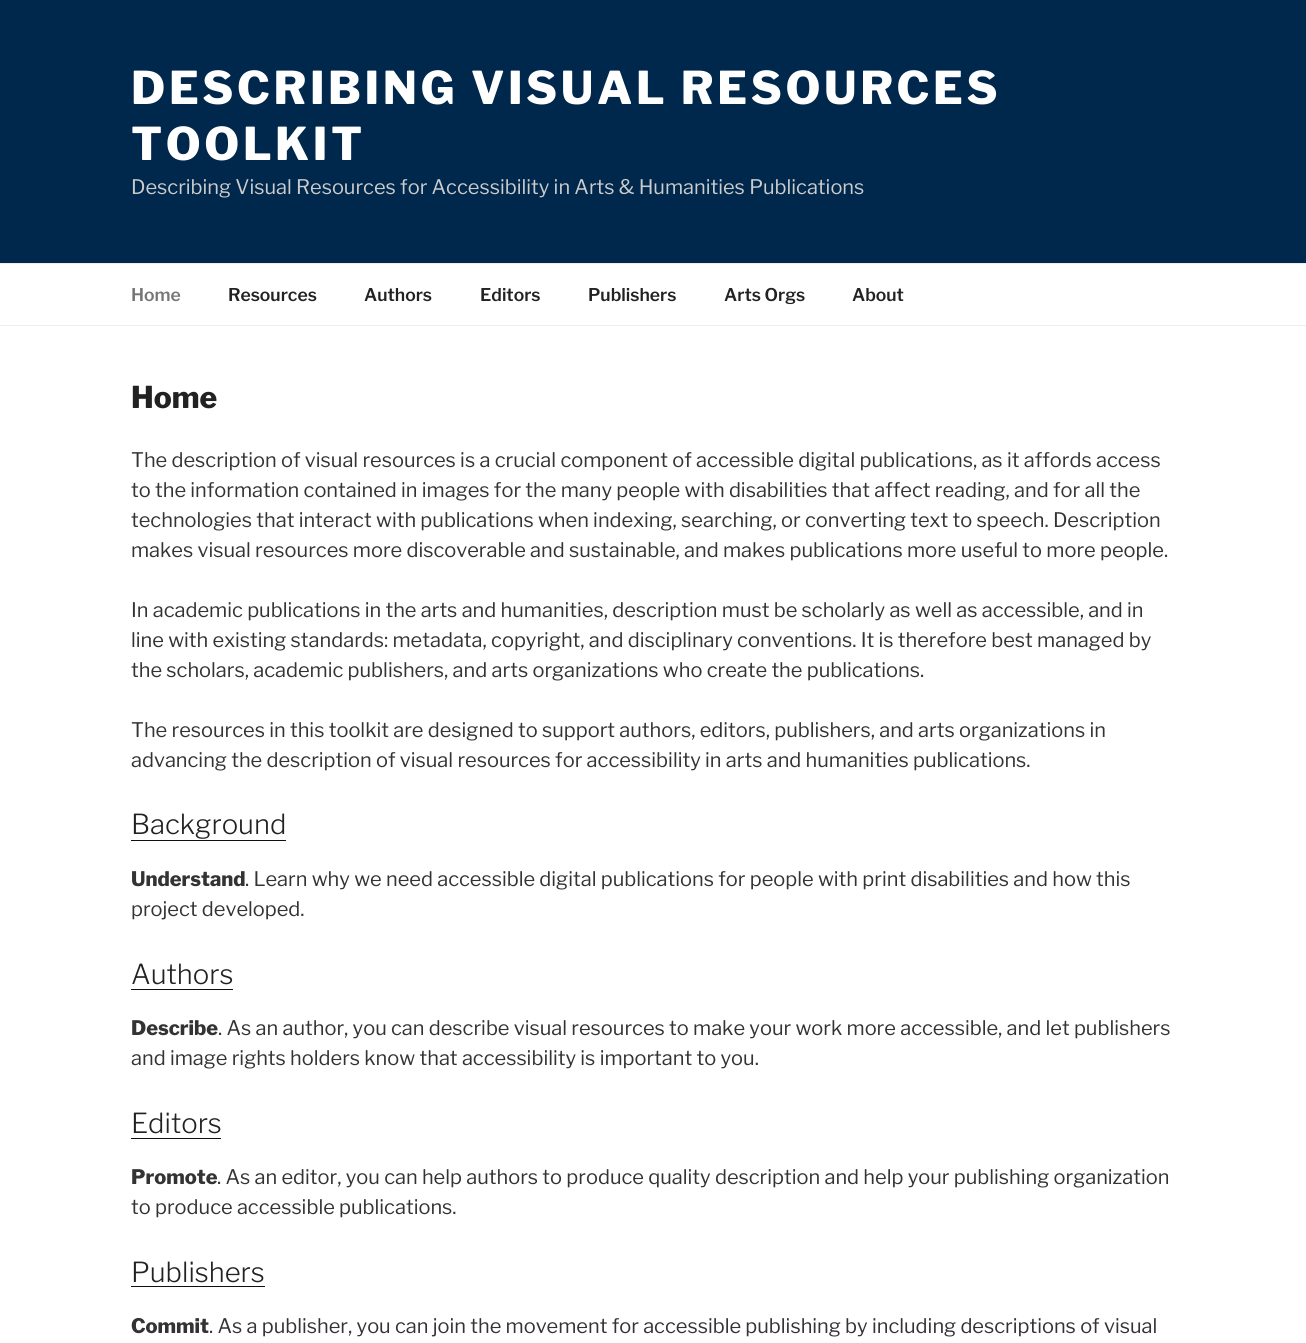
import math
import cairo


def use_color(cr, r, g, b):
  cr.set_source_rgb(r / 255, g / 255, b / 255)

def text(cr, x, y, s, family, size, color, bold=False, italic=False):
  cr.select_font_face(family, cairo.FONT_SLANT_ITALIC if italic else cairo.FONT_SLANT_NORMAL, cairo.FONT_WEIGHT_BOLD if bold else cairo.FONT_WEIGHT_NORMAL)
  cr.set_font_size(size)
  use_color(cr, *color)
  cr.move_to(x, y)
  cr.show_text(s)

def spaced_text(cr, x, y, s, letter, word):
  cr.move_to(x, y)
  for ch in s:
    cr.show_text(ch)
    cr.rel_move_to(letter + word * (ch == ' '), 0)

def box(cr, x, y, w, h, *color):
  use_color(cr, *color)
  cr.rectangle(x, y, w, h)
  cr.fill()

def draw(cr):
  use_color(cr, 255, 255, 255)
  cr.paint()
  box(cr, 0, 0, 1306, 263, 0, 39, 76)
  box(cr, 0, 263, 1306, 1, 238, 238, 238)
  box(cr, 0, 325, 1306, 1, 238, 238, 238)
  box(cr, 131, 840, 155, 1, 15, 15, 15)
  box(cr, 131, 989, 102, 1, 15, 15, 15)
  box(cr, 131, 1138, 90, 1, 15, 15, 15)
  box(cr, 131, 1286, 134, 1, 15, 15, 15)
  cr.select_font_face("Libre Franklin ExtraBold")
  cr.set_font_size(45)
  use_color(cr, 255, 255, 255)
  spaced_text(cr, 131, 104, "DESCRIBING VISUAL RESOURCES", 3.6, 0)
  spaced_text(cr, 131, 160, "TOOLKIT", 3.6, 0)
  text(cr, 131, 194, "Describing Visual Resources for Accessibility in Arts & Humanities Publications", "Libre Franklin", 20, (204, 204, 204))
  text(cr, 131, 301, "Home", "Libre Franklin SemiBold", 17.5, (118, 118, 118))
  text(cr, 228, 301, "Resources", "Libre Franklin SemiBold", 17.5, (34, 34, 34))
  text(cr, 364, 301, "Authors", "Libre Franklin SemiBold", 17.5, (34, 34, 34))
  text(cr, 480, 301, "Editors", "Libre Franklin SemiBold", 17.5, (34, 34, 34))
  text(cr, 588, 301, "Publishers", "Libre Franklin SemiBold", 17.5, (34, 34, 34))
  text(cr, 724, 301, "Arts Orgs", "Libre Franklin SemiBold", 17.5, (34, 34, 34))
  text(cr, 852, 301, "About", "Libre Franklin SemiBold", 17.5, (34, 34, 34))
  text(cr, 131, 408, "Home", "Libre Franklin ExtraBold", 30, (34, 34, 34))
  text(cr, 131, 467, "The description of visual resources is a crucial component of accessible digital publications, as it affords access", "Libre Franklin", 20, (51, 51, 51))
  text(cr, 131, 497, "to the information contained in images for the many people with disabilities that affect reading, and for all the", "Libre Franklin", 20, (51, 51, 51))
  text(cr, 131, 527, "technologies that interact with publications when indexing, searching, or converting text to speech. Description", "Libre Franklin", 20, (51, 51, 51))
  text(cr, 131, 557, "makes visual resources more discoverable and sustainable, and makes publications more useful to more people.", "Libre Franklin", 20, (51, 51, 51))
  text(cr, 131, 617, "In academic publications in the arts and humanities, description must be scholarly as well as accessible, and in", "Libre Franklin", 20, (51, 51, 51))
  text(cr, 131, 647, "line with existing standards: metadata, copyright, and disciplinary conventions. It is therefore best managed by", "Libre Franklin", 20, (51, 51, 51))
  text(cr, 131, 677, "the scholars, academic publishers, and arts organizations who create the publications.", "Libre Franklin", 20, (51, 51, 51))
  text(cr, 131, 737, "The resources in this toolkit are designed to support authors, editors, publishers, and arts organizations in", "Libre Franklin", 20, (51, 51, 51))
  text(cr, 131, 767, "advancing the description of visual resources for accessibility in arts and humanities publications.", "Libre Franklin", 20, (51, 51, 51))
  text(cr, 131, 834, "Background", "Libre Franklin Light", 27.5, (34, 34, 34))
  text(cr, 131, 886, "Understand", "Libre Franklin ExtraBold", 20, (51, 51, 51))
  text(cr, 245, 886, ". Learn why we need accessible digital publications for people with print disabilities and how this", "Libre Franklin", 20, (51, 51, 51))
  text(cr, 131, 916, "project developed.", "Libre Franklin", 20, (51, 51, 51))
  text(cr, 131, 984, "Authors", "Libre Franklin Light", 27.5, (34, 34, 34))
  text(cr, 131, 1035, "Describe", "Libre Franklin ExtraBold", 20, (51, 51, 51))
  text(cr, 218, 1035, ". As an author, you can describe visual resources to make your work more accessible, and let publishers", "Libre Franklin", 20, (51, 51, 51))
  text(cr, 131, 1065, "and image rights holders know that accessibility is important to you.", "Libre Franklin", 20, (51, 51, 51))
  text(cr, 131, 1133, "Editors", "Libre Franklin Light", 27.5, (34, 34, 34))
  text(cr, 131, 1184, "Promote", "Libre Franklin ExtraBold", 20, (51, 51, 51))
  text(cr, 217, 1184, ". As an editor, you can help authors to produce quality description and help your publishing organization", "Libre Franklin", 20, (51, 51, 51))
  text(cr, 131, 1214, "to produce accessible publications.", "Libre Franklin", 20, (51, 51, 51))
  text(cr, 131, 1282, "Publishers", "Libre Franklin Light", 27.5, (34, 34, 34))
  text(cr, 131, 1333, "Commit", "Libre Franklin ExtraBold", 20, (51, 51, 51))
  text(cr, 209, 1333, ". As a publisher, you can join the movement for accessible publishing by including descriptions of visual", "Libre Franklin", 20, (51, 51, 51))


surface = cairo.ImageSurface(cairo.FORMAT_RGB24, 1306, 1343)
cr = cairo.Context(surface)
options = cairo.FontOptions()
options.set_hint_metrics(cairo.HINT_METRICS_OFF)
options.set_hint_style(cairo.HINT_STYLE_NONE)
cr.set_font_options(options)
cr.set_miter_limit(4)
draw(cr)
surface.write_to_png("out.png")
